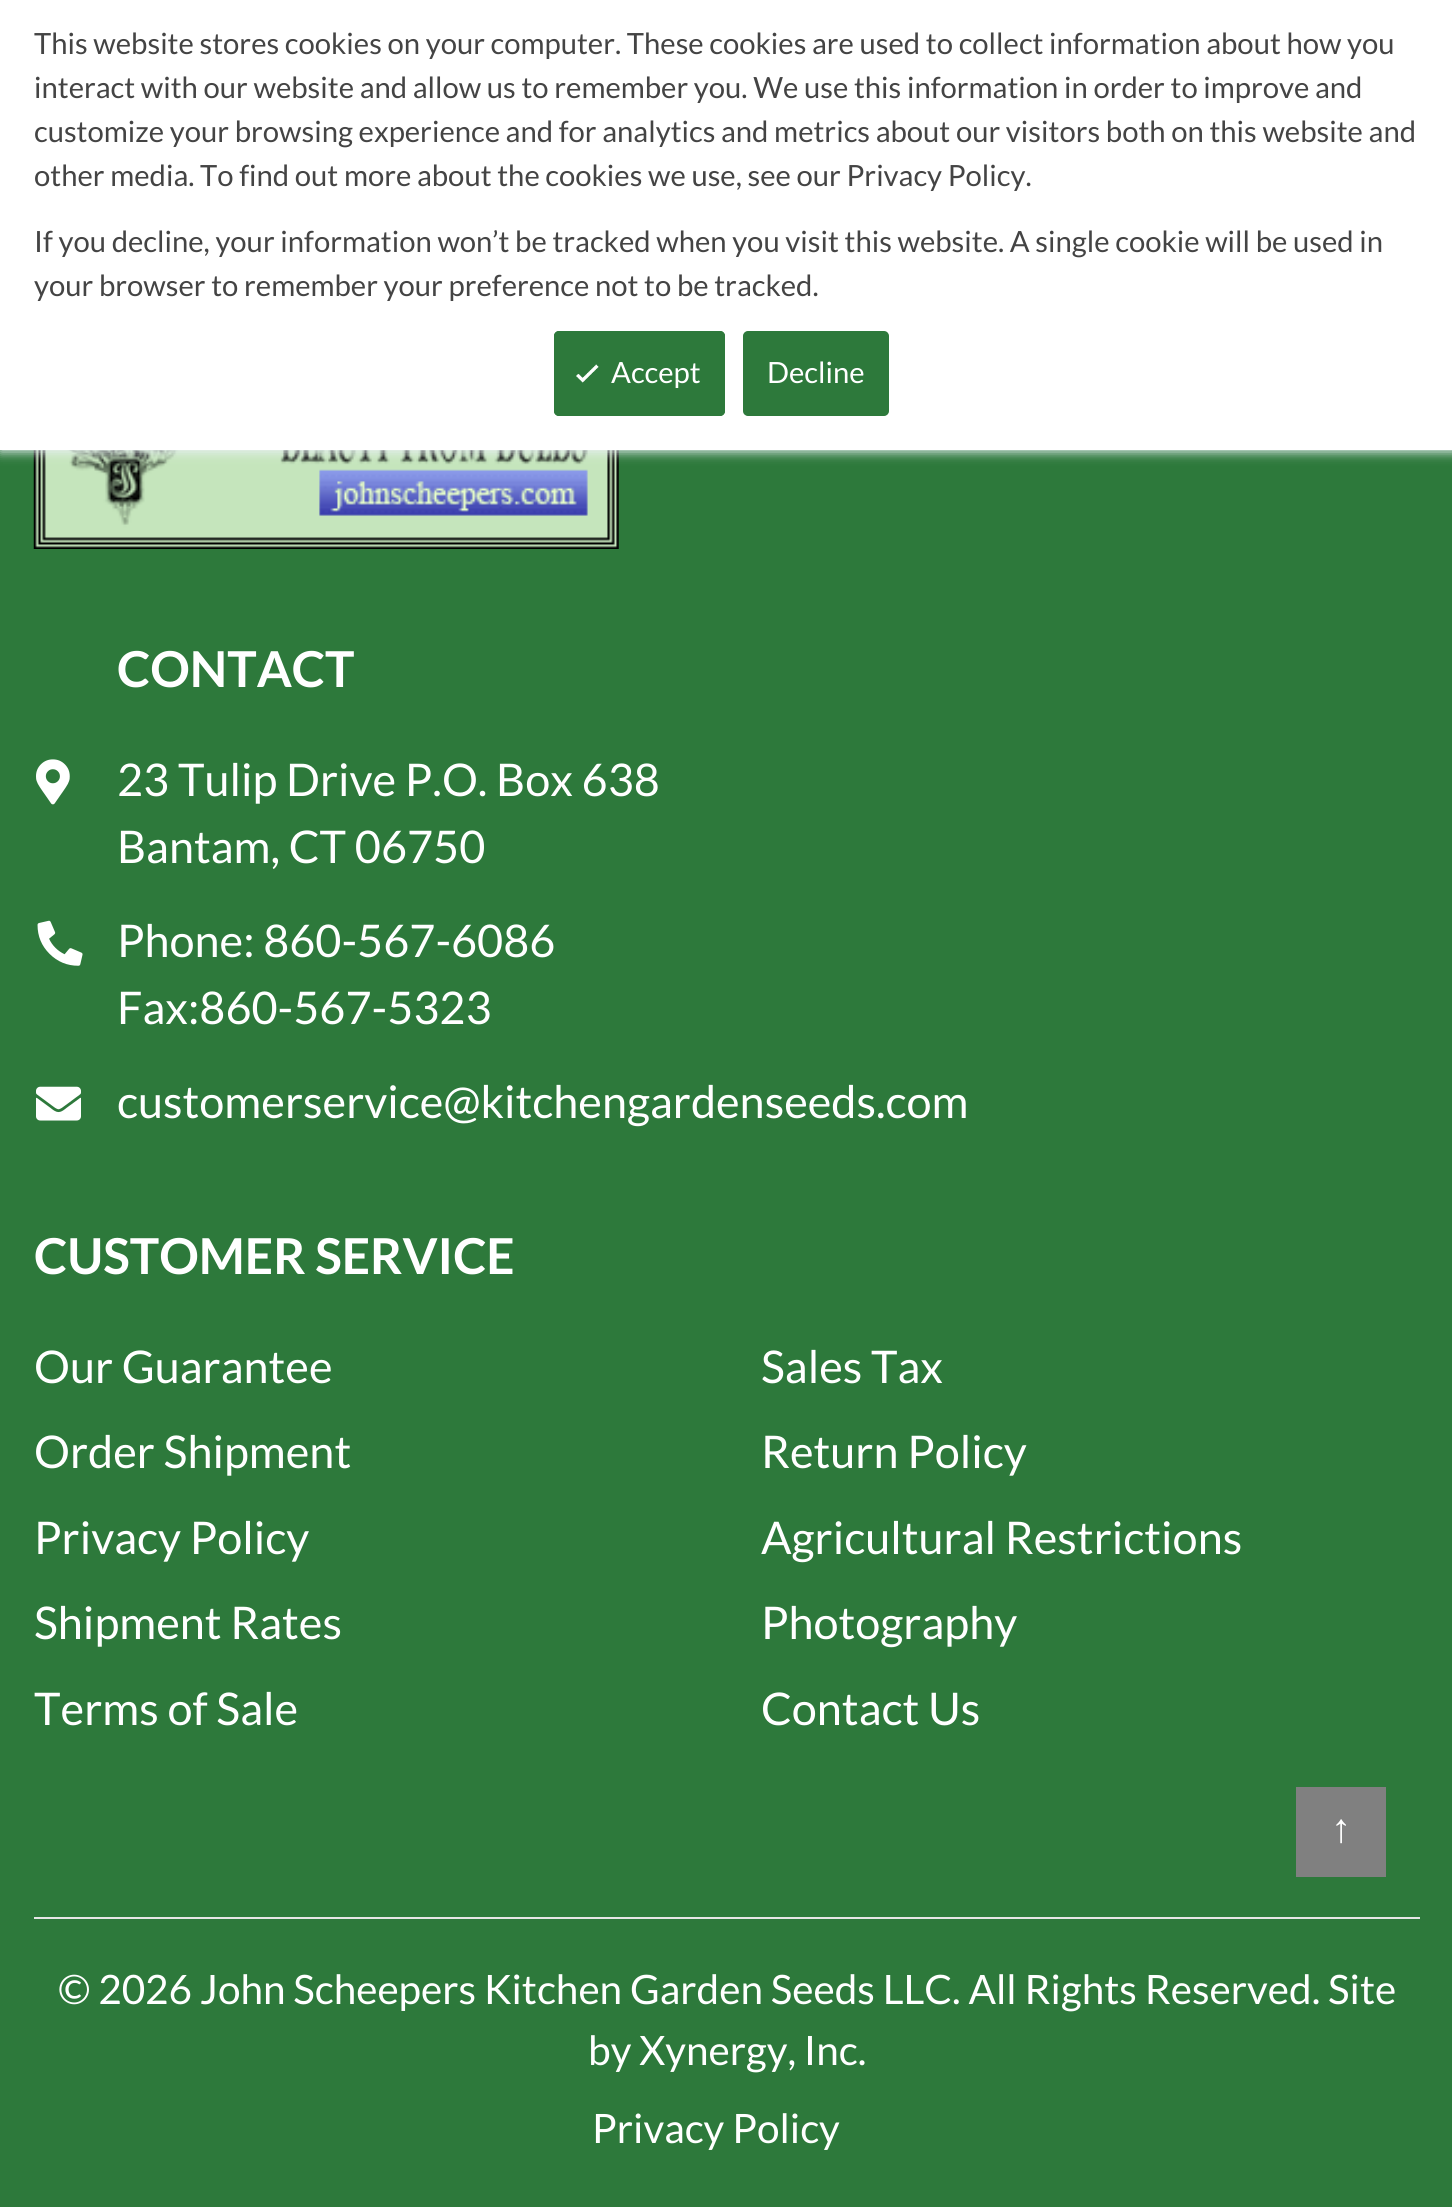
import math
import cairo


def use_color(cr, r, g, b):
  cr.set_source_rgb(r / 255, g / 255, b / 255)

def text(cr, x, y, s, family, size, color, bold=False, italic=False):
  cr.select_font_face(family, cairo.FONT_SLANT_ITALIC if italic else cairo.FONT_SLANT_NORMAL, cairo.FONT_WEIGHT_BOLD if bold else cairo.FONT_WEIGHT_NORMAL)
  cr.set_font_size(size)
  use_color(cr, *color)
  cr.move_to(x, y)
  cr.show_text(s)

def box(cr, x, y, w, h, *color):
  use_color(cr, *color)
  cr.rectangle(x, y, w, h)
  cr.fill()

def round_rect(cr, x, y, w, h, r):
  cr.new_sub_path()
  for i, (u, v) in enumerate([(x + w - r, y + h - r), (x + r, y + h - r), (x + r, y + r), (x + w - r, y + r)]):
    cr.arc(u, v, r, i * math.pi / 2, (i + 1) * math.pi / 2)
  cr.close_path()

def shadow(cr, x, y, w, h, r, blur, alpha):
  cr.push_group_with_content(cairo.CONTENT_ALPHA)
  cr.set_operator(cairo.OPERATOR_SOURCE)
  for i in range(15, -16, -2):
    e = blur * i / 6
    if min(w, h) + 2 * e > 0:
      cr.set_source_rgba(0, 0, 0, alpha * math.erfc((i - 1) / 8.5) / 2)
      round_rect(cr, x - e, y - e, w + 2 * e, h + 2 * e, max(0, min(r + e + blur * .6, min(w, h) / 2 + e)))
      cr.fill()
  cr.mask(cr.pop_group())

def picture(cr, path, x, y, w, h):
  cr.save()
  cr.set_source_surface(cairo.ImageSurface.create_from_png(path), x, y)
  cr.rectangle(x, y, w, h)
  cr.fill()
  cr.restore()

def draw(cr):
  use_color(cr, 45, 121, 59)
  cr.paint()
  picture(cr, "img_02.png", 33, 450, 586, 99)
  use_color(cr, 234, 240, 246)
  shadow(cr, 0, 2, 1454, 450, 0, 5.5, 1)
  box(cr, 0, 0, 1452, 450, 255, 255, 255)
  use_color(cr, 45, 121, 59)
  round_rect(cr, 554, 331, 171, 85, 5)
  cr.fill()
  picture(cr, "img_01.png", 576, 364, 23, 19)
  round_rect(cr, 555, 332, 169, 83, 4)
  cr.stroke()
  round_rect(cr, 744, 332, 144, 83, 4)
  cr.fill_preserve()
  cr.stroke()
  picture(cr, "img_03.png", 36, 759, 34, 46)
  picture(cr, "img_04.png", 37, 920, 46, 46)
  picture(cr, "img_05.png", 36, 1086, 45, 35)
  box(cr, 34, 1917, 1386, 2, 230, 230, 230)
  box(cr, 1296, 1787, 90, 90, 128, 128, 128)
  text(cr, 34, 54, "This website stores cookies on your computer. These cookies are used to collect information about how you", "Lato", 29.25, (68, 68, 68))
  text(cr, 34, 98, "interact with our website and allow us to remember you. We use this information in order to improve and", "Lato", 29.25, (68, 68, 68))
  text(cr, 34, 142, "customize your browsing experience and for analytics and metrics about our visitors both on this website and", "Lato", 29.25, (68, 68, 68))
  text(cr, 34, 186, "other media. To find out more about the cookies we use, see our Privacy Policy.", "Lato", 29.25, (68, 68, 68))
  text(cr, 34, 252, "If you decline, your information won’t be tracked when you visit this website. A single cookie will be used in", "Lato", 29.25, (68, 68, 68))
  text(cr, 34, 296, "your browser to remember your preference not to be tracked.", "Lato", 29.25, (68, 68, 68))
  text(cr, 611, 383, "Accept", "Lato", 29.25, (255, 255, 255))
  text(cr, 767, 383, "Decline", "Lato", 29.25, (255, 255, 255))
  text(cr, 117, 687, "CONTACT", "Lato", 49.5, (255, 255, 255), bold=True)
  text(cr, 117, 796, "23 Tulip Drive P.O. Box 638", "Lato", 45, (255, 255, 255))
  text(cr, 117, 863, "Bantam, CT 06750", "Lato", 45, (255, 255, 255))
  text(cr, 117, 957, "Phone: 860-567-6086", "Lato", 45, (255, 255, 255))
  text(cr, 117, 1024, "Fax:860-567-5323", "Lato", 45, (255, 255, 255))
  text(cr, 117, 1118, "customerservice@kitchengardenseeds.com", "Lato", 45, (255, 255, 255))
  text(cr, 34, 1274, "CUSTOMER SERVICE", "Lato", 49.5, (255, 255, 255), bold=True)
  text(cr, 34, 1383, "Our Guarantee", "Lato", 45, (255, 255, 255))
  text(cr, 34, 1468, "Order Shipment", "Lato", 45, (255, 255, 255))
  text(cr, 34, 1554, "Privacy Policy", "Lato", 45, (255, 255, 255))
  text(cr, 34, 1639, "Shipment Rates", "Lato", 45, (255, 255, 255))
  text(cr, 34, 1725, "Terms of Sale", "Lato", 45, (255, 255, 255))
  text(cr, 761, 1383, "Sales Tax", "Lato", 45, (255, 255, 255))
  text(cr, 761, 1468, "Return Policy", "Lato", 45, (255, 255, 255))
  text(cr, 761, 1554, "Agricultural Restrictions", "Lato", 45, (255, 255, 255))
  text(cr, 761, 1639, "Photography", "Lato", 45, (255, 255, 255))
  text(cr, 761, 1725, "Contact Us", "Lato", 45, (255, 255, 255))
  text(cr, 58, 2004, "© 2026 John Scheepers Kitchen Garden Seeds LLC. All Rights Reserved. Site", "Lato", 40.5, (255, 255, 255))
  text(cr, 588, 2065, "by Xynergy, Inc.", "Lato", 40.5, (255, 255, 255))
  text(cr, 592, 2143, "Privacy Policy", "Lato", 40.5, (255, 255, 255))
  text(cr, 1331, 1842, "↑", "Liberation Serif", 40.5, (255, 255, 255))


surface = cairo.ImageSurface(cairo.FORMAT_RGB24, 1452, 2207)
cr = cairo.Context(surface)
options = cairo.FontOptions()
options.set_hint_metrics(cairo.HINT_METRICS_OFF)
options.set_hint_style(cairo.HINT_STYLE_NONE)
cr.set_font_options(options)
cr.set_miter_limit(4)
draw(cr)
surface.write_to_png("out.png")
